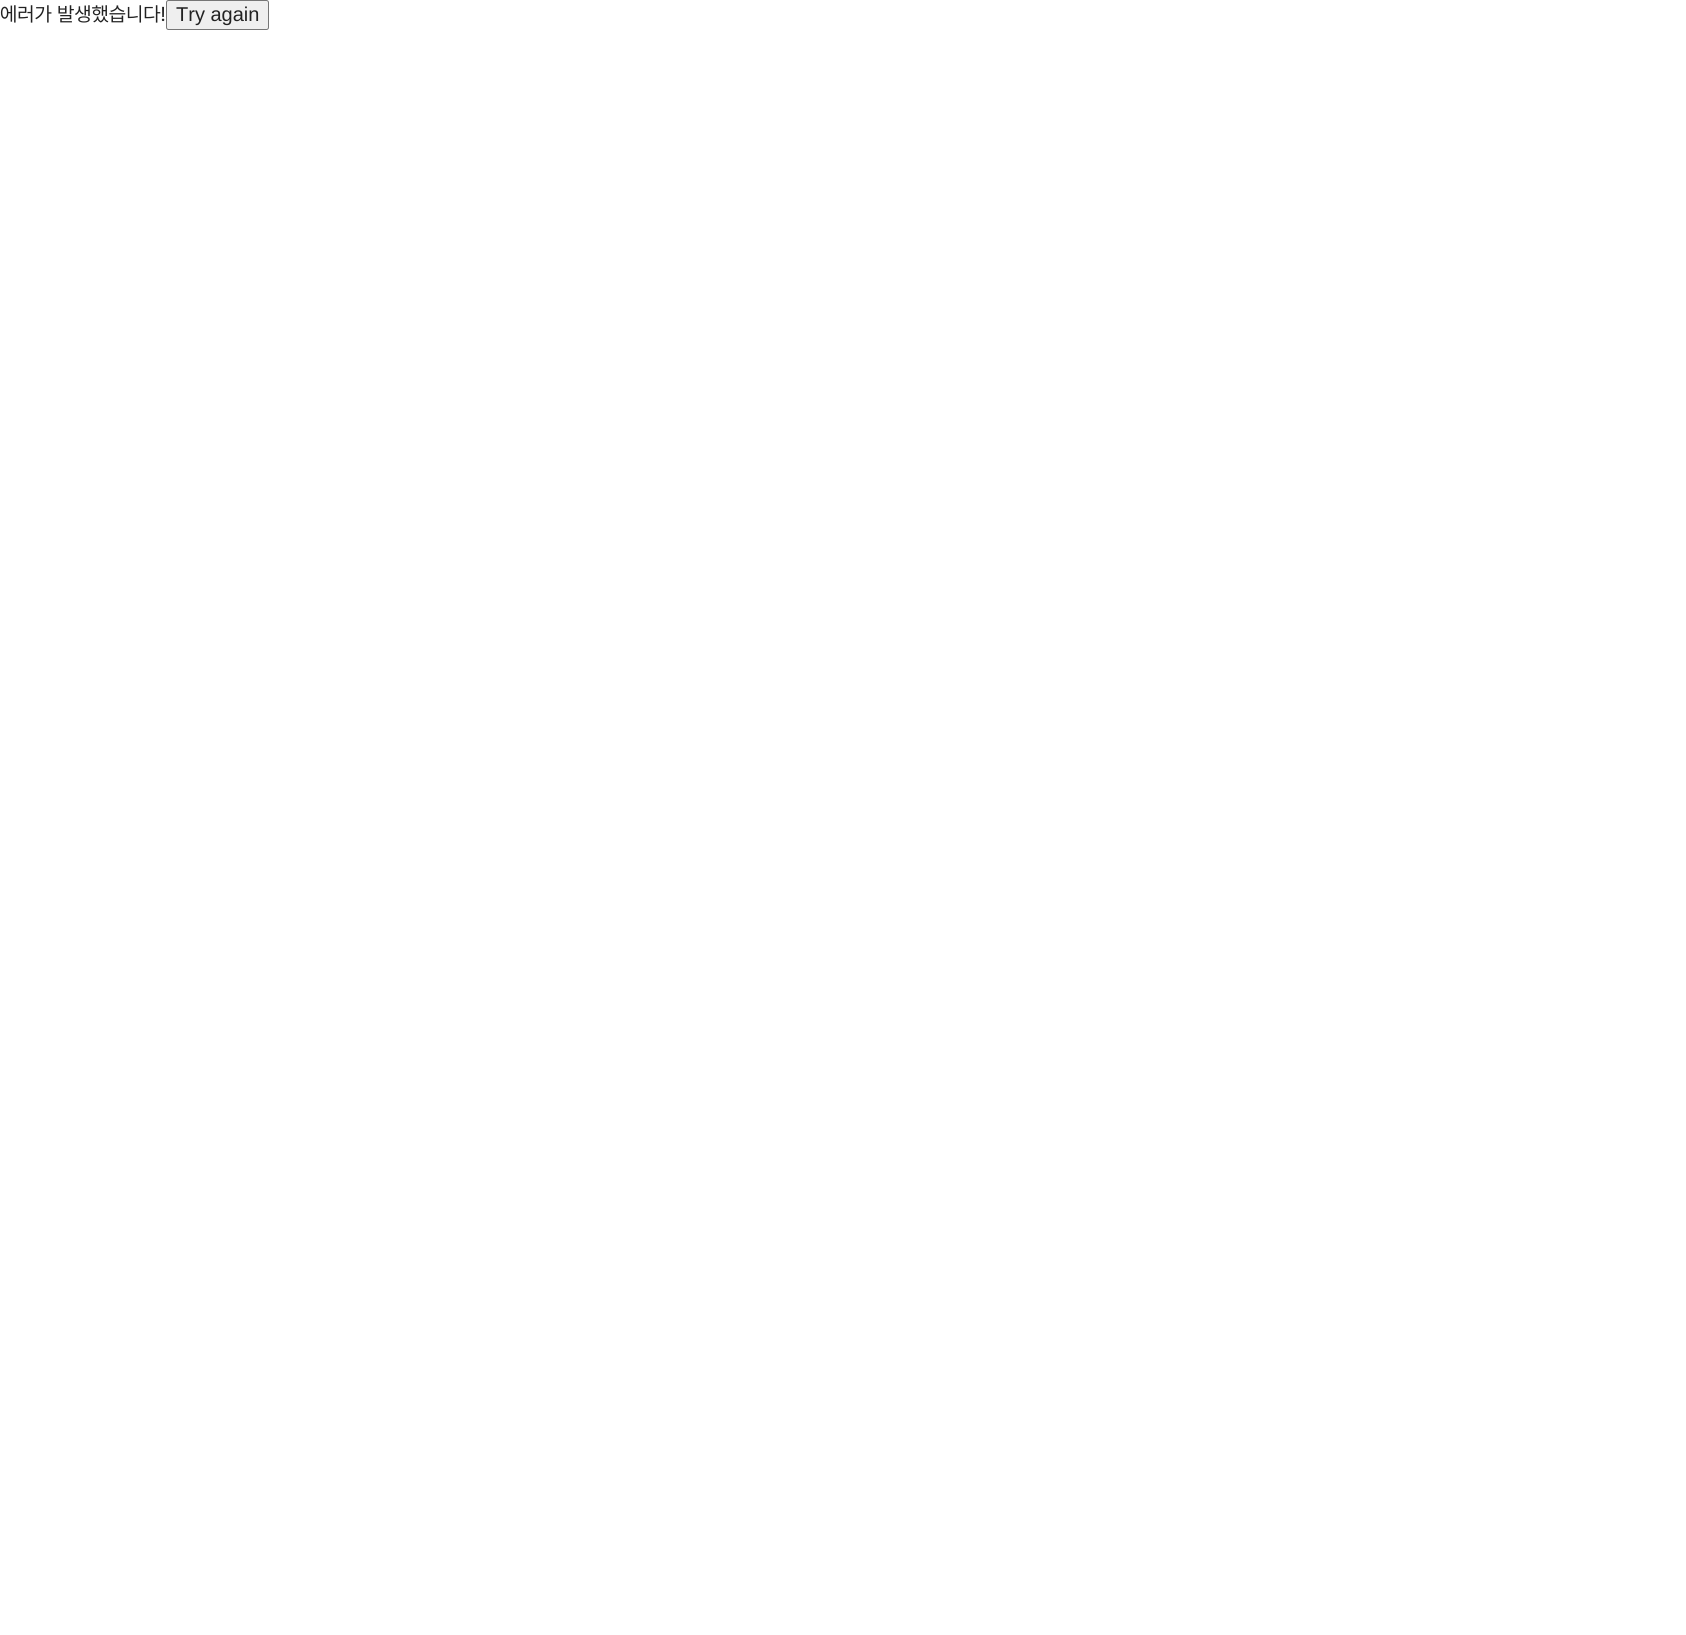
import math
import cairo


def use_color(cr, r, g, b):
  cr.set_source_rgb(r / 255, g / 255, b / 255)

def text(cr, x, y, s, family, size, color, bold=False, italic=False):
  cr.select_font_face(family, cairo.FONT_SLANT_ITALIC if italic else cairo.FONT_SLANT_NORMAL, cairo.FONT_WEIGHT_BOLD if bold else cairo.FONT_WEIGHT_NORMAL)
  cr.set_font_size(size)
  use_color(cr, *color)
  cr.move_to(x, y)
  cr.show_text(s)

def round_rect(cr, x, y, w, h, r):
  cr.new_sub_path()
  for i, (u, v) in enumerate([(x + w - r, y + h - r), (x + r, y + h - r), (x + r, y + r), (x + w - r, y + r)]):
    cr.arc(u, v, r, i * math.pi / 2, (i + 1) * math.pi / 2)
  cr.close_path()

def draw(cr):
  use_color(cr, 255, 255, 255)
  cr.paint()
  use_color(cr, 239, 239, 239)
  round_rect(cr, 166.5, 0.5, 102, 29, 2)
  cr.fill_preserve()
  use_color(cr, 118, 118, 118)
  cr.set_line_width(1)
  cr.stroke()
  text(cr, 0, 21, "에러가 발생했습니다!", "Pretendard", 20, (34, 34, 34))
  text(cr, 176, 21, "Try again", "Liberation Sans", 20, (34, 34, 34))


surface = cairo.ImageSurface(cairo.FORMAT_RGB24, 1686, 1635)
cr = cairo.Context(surface)
options = cairo.FontOptions()
options.set_hint_metrics(cairo.HINT_METRICS_OFF)
options.set_hint_style(cairo.HINT_STYLE_NONE)
cr.set_font_options(options)
cr.set_miter_limit(4)
draw(cr)
surface.write_to_png("out.png")
